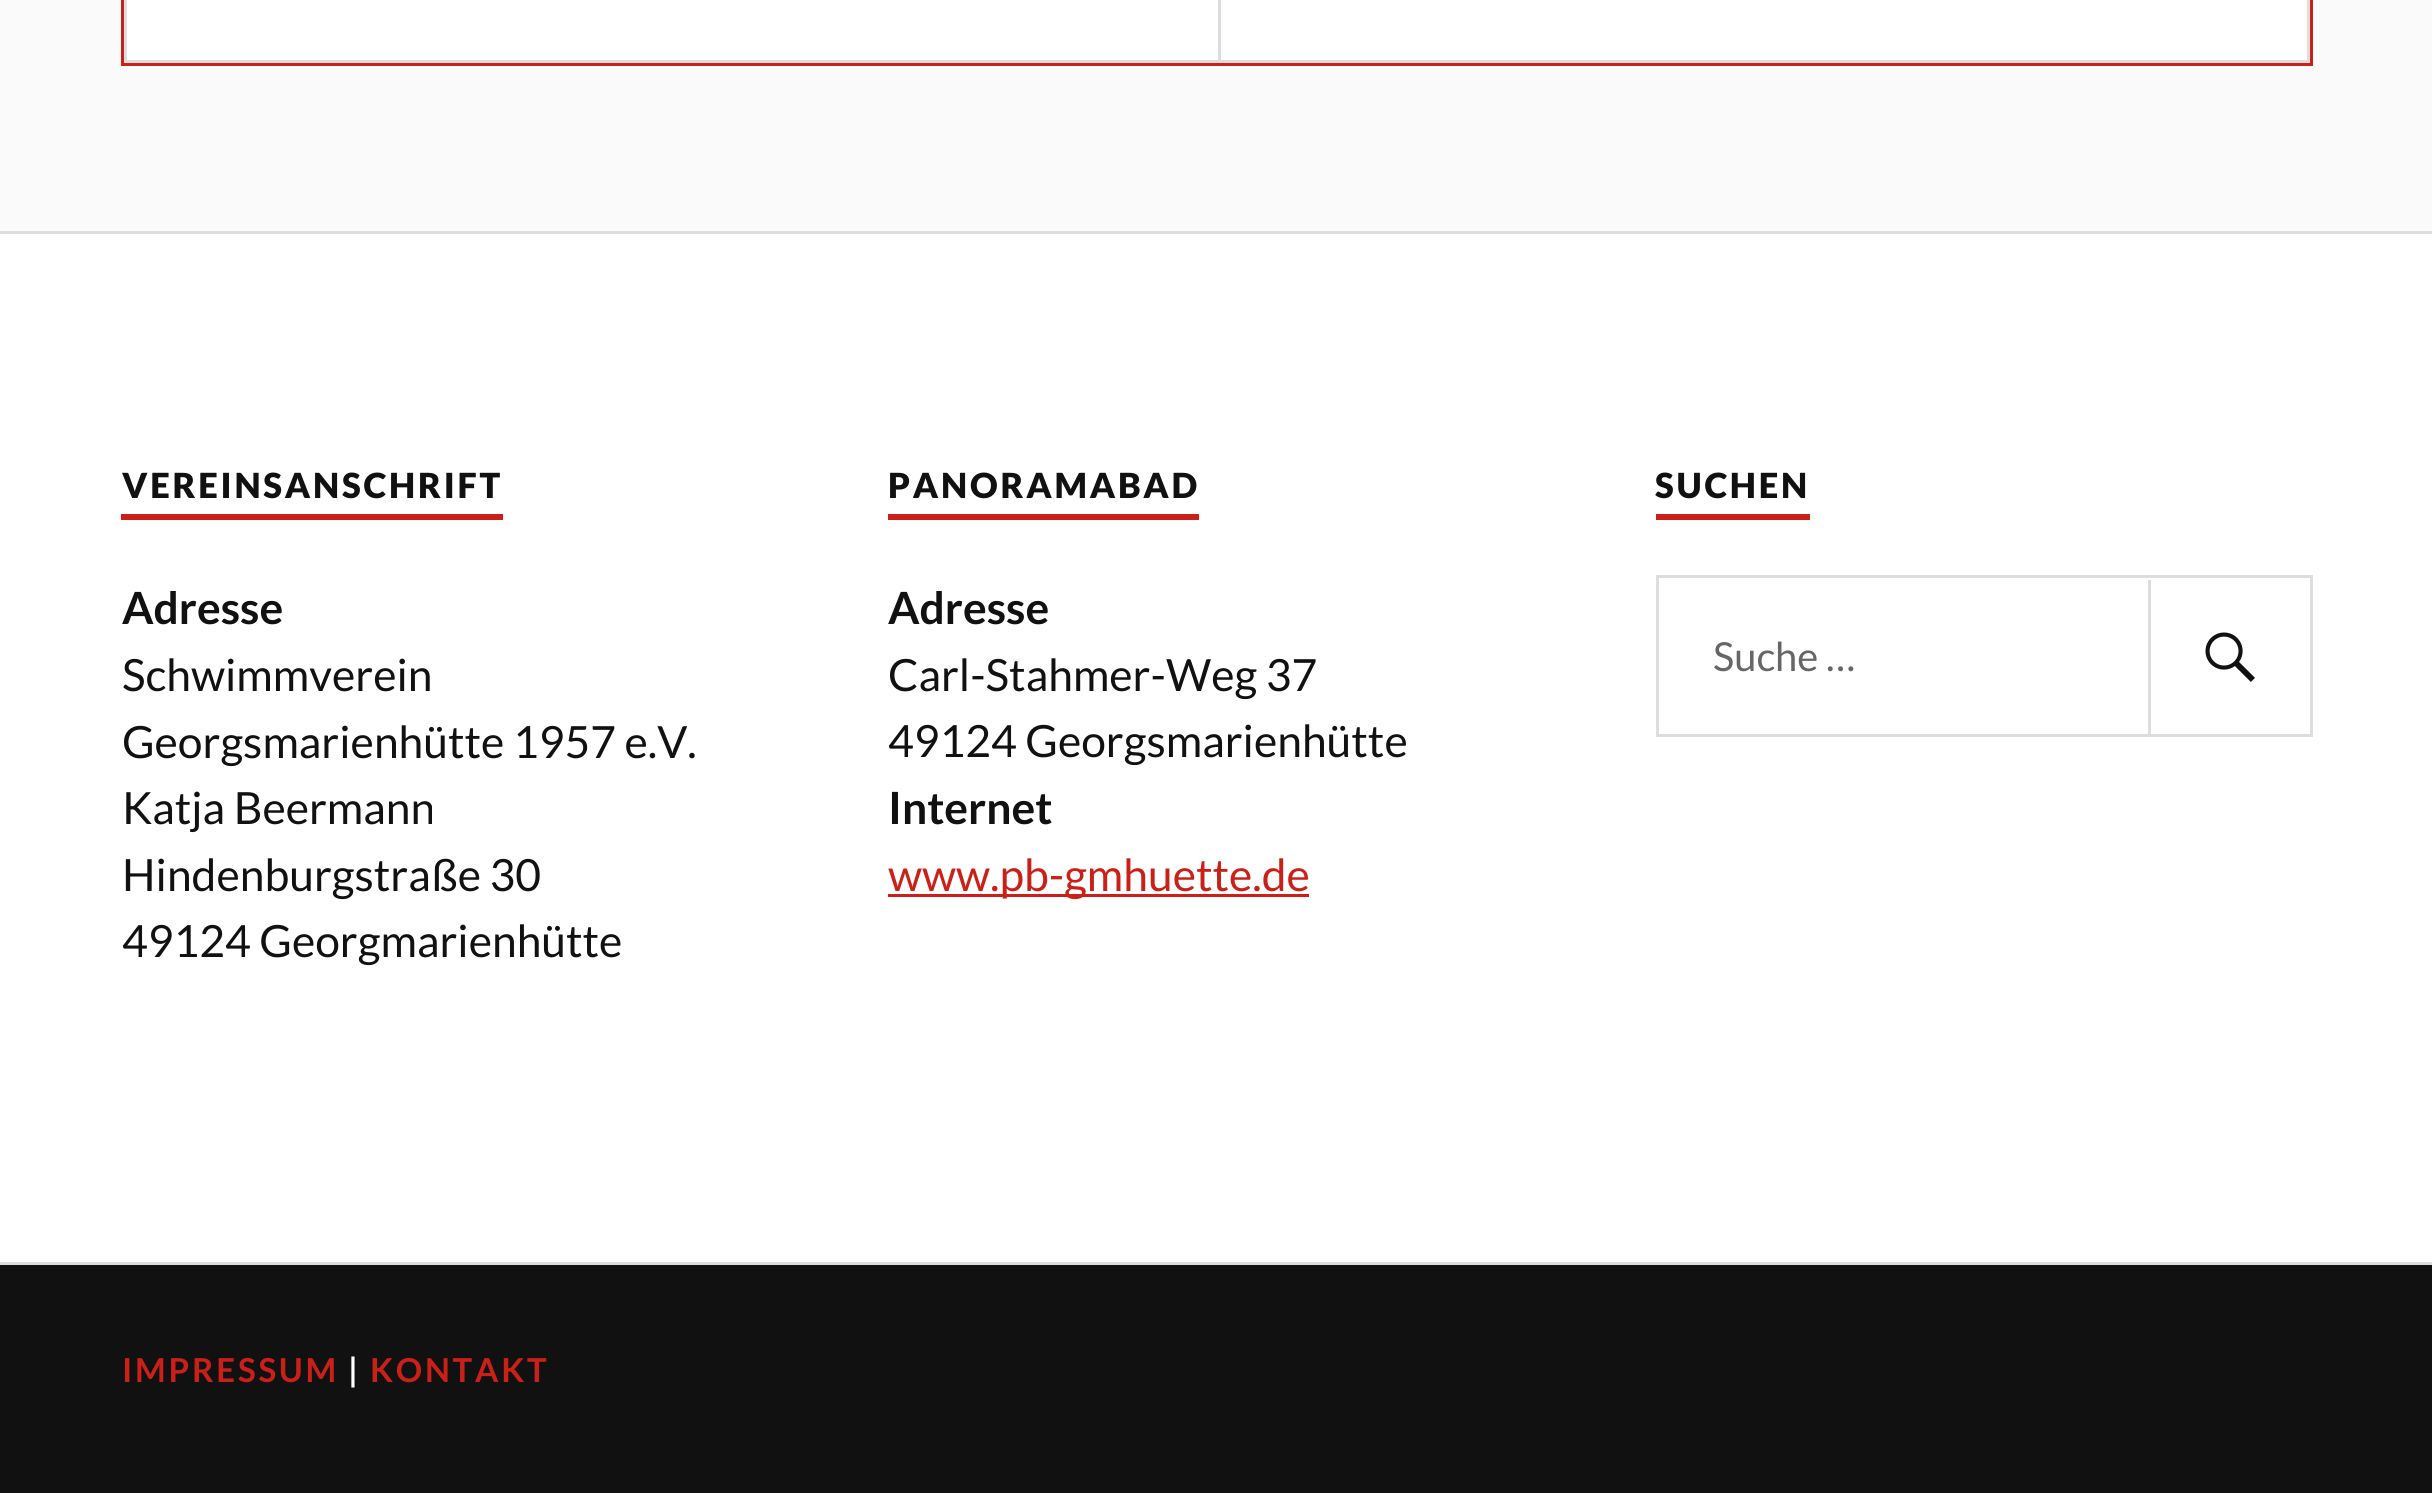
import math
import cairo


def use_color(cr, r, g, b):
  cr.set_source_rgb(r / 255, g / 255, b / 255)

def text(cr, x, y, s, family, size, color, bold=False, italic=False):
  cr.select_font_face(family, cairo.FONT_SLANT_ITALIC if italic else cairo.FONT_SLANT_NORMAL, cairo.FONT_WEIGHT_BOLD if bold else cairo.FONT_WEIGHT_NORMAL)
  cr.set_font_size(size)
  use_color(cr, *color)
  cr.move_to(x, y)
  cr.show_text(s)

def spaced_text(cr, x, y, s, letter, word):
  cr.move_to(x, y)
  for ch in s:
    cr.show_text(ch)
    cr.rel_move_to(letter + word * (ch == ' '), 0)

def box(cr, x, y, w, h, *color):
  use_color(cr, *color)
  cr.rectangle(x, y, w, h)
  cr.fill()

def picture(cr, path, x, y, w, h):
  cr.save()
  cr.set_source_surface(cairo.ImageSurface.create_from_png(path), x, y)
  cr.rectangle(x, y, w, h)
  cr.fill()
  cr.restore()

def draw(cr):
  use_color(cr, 250, 250, 250)
  cr.paint()
  cr.rectangle(122.5, -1.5, 2189, 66)
  use_color(cr, 202, 32, 23)
  cr.set_line_width(3)
  cr.stroke()
  use_color(cr, 255, 255, 255)
  cr.rectangle(125.5, -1.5, 2183, 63)
  cr.fill_preserve()
  use_color(cr, 221, 221, 221)
  cr.stroke()
  box(cr, 1218, 0, 3, 61, 221, 221, 221)
  box(cr, 0, 234, 2432, 1028, 255, 255, 255)
  box(cr, 0, 231, 2432, 3, 221, 221, 221)
  box(cr, 0, 1262, 2432, 3, 221, 221, 221)
  box(cr, 121, 514, 382, 6, 202, 32, 23)
  box(cr, 888, 514, 311, 6, 202, 32, 23)
  box(cr, 888, 894, 421, 3, 202, 32, 23)
  box(cr, 1656, 514, 154, 6, 202, 32, 23)
  cr.rectangle(1657.5, 576.5, 654, 159)
  use_color(cr, 221, 221, 221)
  cr.stroke()
  box(cr, 2148, 580, 3, 154, 221, 221, 221)
  picture(cr, "img_01.png", 2205, 632, 50, 50)
  box(cr, 0, 1265, 2432, 228, 17, 17, 17)
  cr.select_font_face("Lato Black")
  cr.set_font_size(34.6)
  spaced_text(cr, 122, 498, "VEREINSANSCHRIFT", 2.75, 0)
  text(cr, 122, 624, "Adresse", "Lato", 44.4, (17, 17, 17), bold=True)
  text(cr, 122, 691, "Schwimmverein", "Lato", 44.4, (17, 17, 17))
  text(cr, 122, 758, "Georgsmarienhütte 1957 e.V.", "Lato", 44.4, (17, 17, 17))
  text(cr, 122, 824, "Katja Beermann", "Lato", 44.4, (17, 17, 17))
  text(cr, 122, 891, "Hindenburgstraße 30", "Lato", 44.4, (17, 17, 17))
  text(cr, 122, 957, "49124 Georgmarienhütte", "Lato", 44.4, (17, 17, 17))
  cr.select_font_face("Lato Black")
  cr.set_font_size(34.6)
  spaced_text(cr, 888, 498, "PANORAMABAD", 2.75, 0)
  text(cr, 888, 624, "Adresse", "Lato", 44.4, (17, 17, 17), bold=True)
  text(cr, 888, 691, "Carl-Stahmer-Weg 37", "Lato", 44.4, (17, 17, 17))
  text(cr, 888, 757, "49124 Georgsmarienhütte", "Lato", 44.4, (17, 17, 17))
  text(cr, 888, 824, "Internet", "Lato", 44.4, (17, 17, 17), bold=True)
  text(cr, 888, 891, "www.pb-gmhuette.de", "Lato", 44.4, (202, 32, 23))
  cr.select_font_face("Lato Black")
  cr.set_font_size(34.6)
  use_color(cr, 17, 17, 17)
  spaced_text(cr, 1655, 498, "SUCHEN", 2.75, 0)
  text(cr, 1713, 671, "Suche …", "Lato", 40, (102, 102, 102))
  cr.select_font_face("Lato", cairo.FONT_SLANT_NORMAL, cairo.FONT_WEIGHT_BOLD)
  cr.set_font_size(33)
  use_color(cr, 202, 32, 23)
  spaced_text(cr, 122, 1382, "IMPRESSUM", 2.75, 0)
  use_color(cr, 255, 255, 255)
  spaced_text(cr, 348, 1382, "|", 2.75, 0)
  use_color(cr, 202, 32, 23)
  spaced_text(cr, 370, 1382, "KONTAKT", 2.75, 0)


surface = cairo.ImageSurface(cairo.FORMAT_RGB24, 2432, 1493)
cr = cairo.Context(surface)
options = cairo.FontOptions()
options.set_hint_metrics(cairo.HINT_METRICS_OFF)
options.set_hint_style(cairo.HINT_STYLE_NONE)
cr.set_font_options(options)
cr.set_miter_limit(4)
draw(cr)
surface.write_to_png("out.png")
